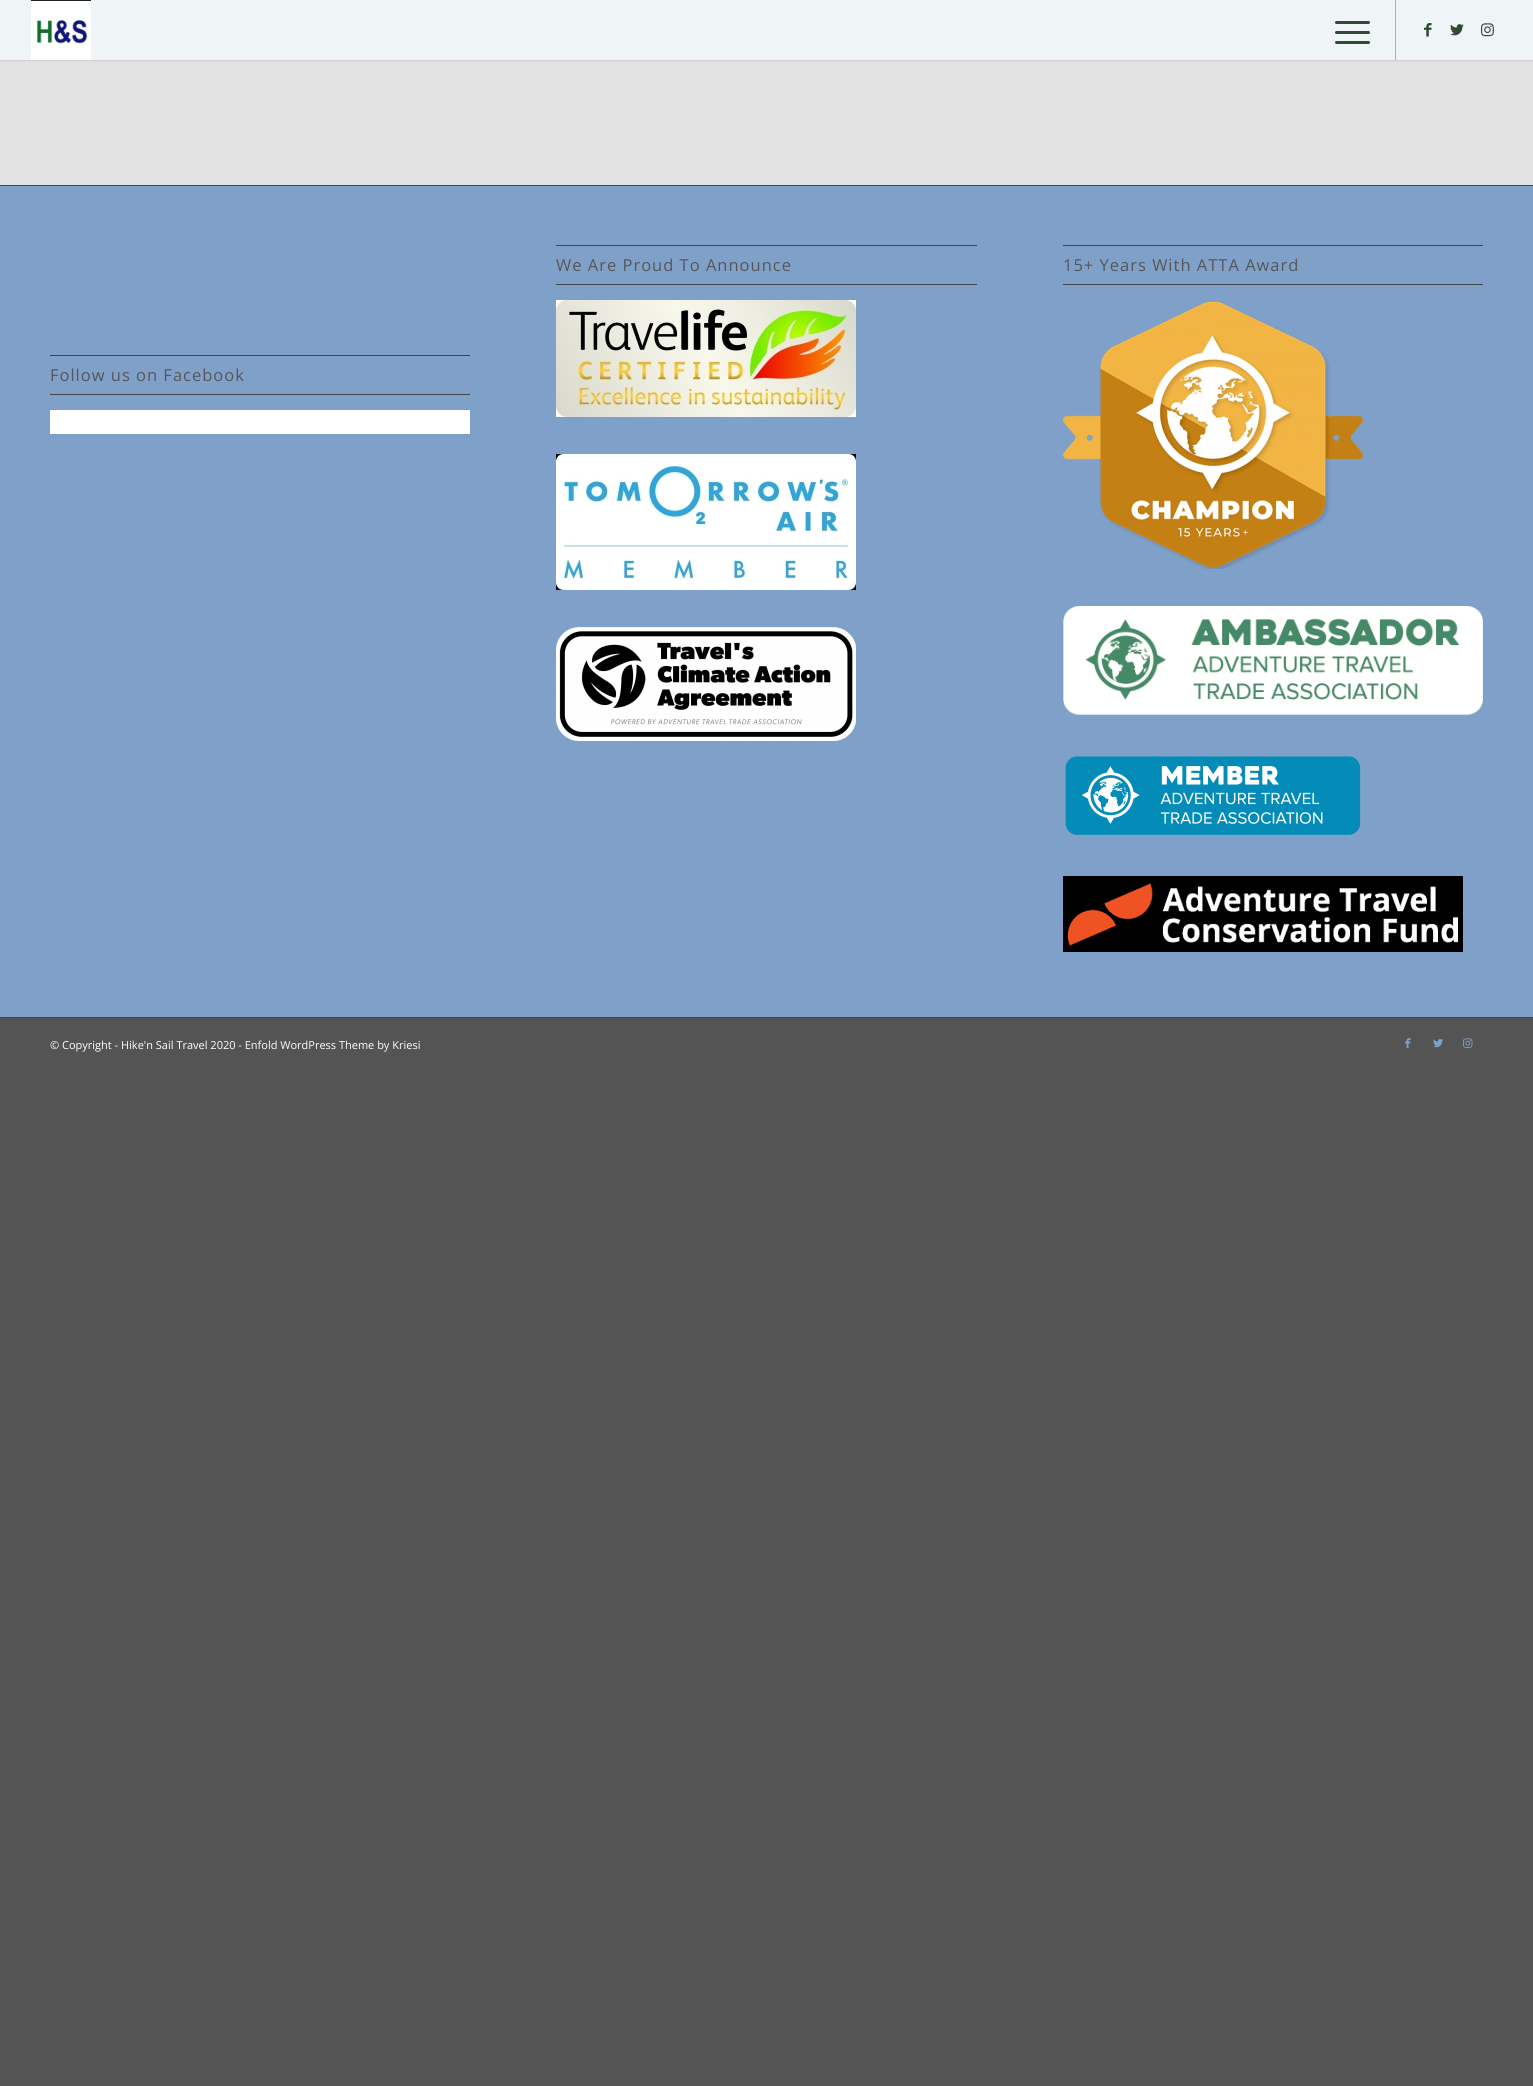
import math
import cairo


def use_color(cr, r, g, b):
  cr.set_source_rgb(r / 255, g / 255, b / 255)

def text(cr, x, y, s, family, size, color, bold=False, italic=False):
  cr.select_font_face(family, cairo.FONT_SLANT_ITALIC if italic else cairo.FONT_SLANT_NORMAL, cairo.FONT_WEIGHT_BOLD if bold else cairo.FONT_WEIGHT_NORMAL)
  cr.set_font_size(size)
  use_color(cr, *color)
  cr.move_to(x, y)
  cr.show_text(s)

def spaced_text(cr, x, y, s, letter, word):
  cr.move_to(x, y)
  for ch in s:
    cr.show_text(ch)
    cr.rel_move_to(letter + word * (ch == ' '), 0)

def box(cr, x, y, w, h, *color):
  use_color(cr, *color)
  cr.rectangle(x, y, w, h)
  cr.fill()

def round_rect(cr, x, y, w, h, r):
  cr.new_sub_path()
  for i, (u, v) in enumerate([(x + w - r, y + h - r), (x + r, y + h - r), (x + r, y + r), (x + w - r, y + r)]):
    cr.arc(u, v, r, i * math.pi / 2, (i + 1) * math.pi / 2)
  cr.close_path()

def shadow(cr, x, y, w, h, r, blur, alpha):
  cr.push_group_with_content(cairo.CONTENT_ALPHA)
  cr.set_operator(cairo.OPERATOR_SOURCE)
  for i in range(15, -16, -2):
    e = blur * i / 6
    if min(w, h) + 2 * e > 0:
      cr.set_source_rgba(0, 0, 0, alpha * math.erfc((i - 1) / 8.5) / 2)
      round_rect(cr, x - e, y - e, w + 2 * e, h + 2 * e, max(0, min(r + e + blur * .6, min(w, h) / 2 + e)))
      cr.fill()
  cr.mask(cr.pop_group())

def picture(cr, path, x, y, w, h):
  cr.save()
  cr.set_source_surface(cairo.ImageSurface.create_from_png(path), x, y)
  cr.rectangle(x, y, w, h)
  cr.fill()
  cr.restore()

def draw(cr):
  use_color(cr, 84, 84, 84)
  cr.paint()
  box(cr, 0, 60, 1533, 125, 227, 227, 227)
  use_color(cr, 0, 0, 0)
  shadow(cr, -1, -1, 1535, 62, 0, 1, 0.1)
  box(cr, 0, 0, 1533, 60, 239, 245, 247)
  picture(cr, "img_01.png", 31, 0, 60, 60)
  box(cr, 1395, 0, 1, 60, 176, 179, 154)
  use_color(cr, 49, 74, 51)
  round_rect(cr, 1335, 31, 35, 3, 1.5)
  cr.fill()
  round_rect(cr, 1335, 21, 35, 3, 1.5)
  cr.fill()
  round_rect(cr, 1335, 41, 35, 3, 1.5)
  cr.fill()
  picture(cr, "img_02.png", 1424, 23, 8, 14)
  picture(cr, "img_03.png", 1450, 24, 14, 12)
  picture(cr, "img_04.png", 1481, 23, 13, 14)
  box(cr, 0, 186, 1533, 831, 127, 161, 201)
  box(cr, 0, 185, 1533, 1, 68, 68, 68)
  box(cr, 556, 245, 421, 1, 68, 68, 68)
  box(cr, 556, 284, 421, 1, 68, 68, 68)
  picture(cr, "img_05.png", 556, 300, 300, 117)
  picture(cr, "img_06.png", 556, 454, 300, 136)
  picture(cr, "img_07.png", 556, 627, 300, 114)
  box(cr, 1063, 245, 420, 1, 68, 68, 68)
  box(cr, 1063, 284, 420, 1, 68, 68, 68)
  picture(cr, "img_08.png", 1063, 301, 300, 268)
  picture(cr, "img_09.png", 1063, 606, 420, 109)
  picture(cr, "img_10.png", 1065, 756, 296, 79)
  picture(cr, "img_11.png", 1063, 876, 400, 76)
  box(cr, 50, 355, 420, 1, 68, 68, 68)
  box(cr, 50, 394, 420, 1, 68, 68, 68)
  box(cr, 50, 410, 420, 24, 255, 255, 255)
  box(cr, 0, 1017, 1533, 1, 68, 68, 68)
  picture(cr, "img_12.png", 1405, 1038, 6, 11)
  picture(cr, "img_13.png", 1433, 1039, 10, 9)
  picture(cr, "img_14.png", 1463, 1038, 10, 10)
  cr.select_font_face("Open Sans")
  cr.set_font_size(16.5)
  use_color(cr, 87, 86, 87)
  spaced_text(cr, 556, 271, "We Are Proud To Announce", 1, 0)
  spaced_text(cr, 1063, 271, "15+ Years With ATTA Award", 1, 0)
  spaced_text(cr, 50, 381, "Follow us on Facebook", 1, 0)
  text(cr, 50, 1049, "© Copyright - Hike'n Sail Travel 2020 - Enfold WordPress Theme by Kriesi", "Open Sans", 11, (255, 255, 255))


surface = cairo.ImageSurface(cairo.FORMAT_RGB24, 1533, 2086)
cr = cairo.Context(surface)
options = cairo.FontOptions()
options.set_hint_metrics(cairo.HINT_METRICS_OFF)
options.set_hint_style(cairo.HINT_STYLE_NONE)
cr.set_font_options(options)
cr.set_miter_limit(4)
draw(cr)
surface.write_to_png("out.png")
